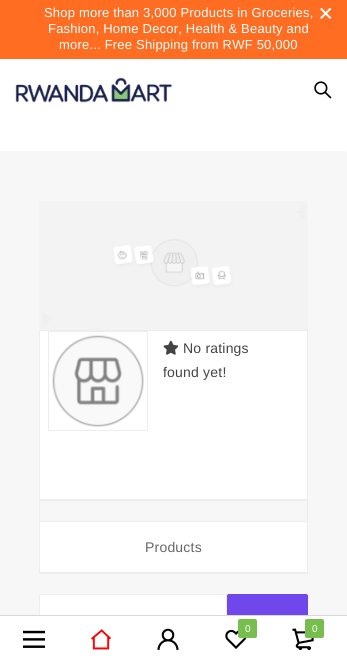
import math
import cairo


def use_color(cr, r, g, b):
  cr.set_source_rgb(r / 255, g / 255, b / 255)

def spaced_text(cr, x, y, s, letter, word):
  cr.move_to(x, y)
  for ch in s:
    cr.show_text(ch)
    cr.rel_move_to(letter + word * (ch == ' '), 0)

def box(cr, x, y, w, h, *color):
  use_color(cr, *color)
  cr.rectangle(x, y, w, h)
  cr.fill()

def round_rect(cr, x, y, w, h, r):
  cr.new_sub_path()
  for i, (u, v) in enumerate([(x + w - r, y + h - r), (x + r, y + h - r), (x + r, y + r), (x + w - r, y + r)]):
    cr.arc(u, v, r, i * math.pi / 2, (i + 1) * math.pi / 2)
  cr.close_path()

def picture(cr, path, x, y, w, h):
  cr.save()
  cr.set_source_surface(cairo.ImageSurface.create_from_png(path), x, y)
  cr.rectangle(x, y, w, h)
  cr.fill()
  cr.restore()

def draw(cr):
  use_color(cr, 255, 255, 255)
  cr.paint()
  box(cr, 0, 0, 347, 59, 255, 109, 34)
  picture(cr, "img_01.png", 320, 7, 12, 12)
  picture(cr, "img_02.png", 15, 77, 158, 26)
  picture(cr, "img_03.png", 314, 81, 18, 18)
  use_color(cr, 247, 247, 247)
  round_rect(cr, 0, 151, 347, 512, 2)
  cr.fill()
  picture(cr, "img_04.png", 39, 201, 269, 129)
  use_color(cr, 255, 255, 255)
  cr.rectangle(39.5, 330.5, 268, 169)
  cr.fill_preserve()
  use_color(cr, 237, 237, 237)
  cr.set_line_width(1)
  cr.stroke()
  cr.rectangle(48.5, 331.5, 99, 99)
  cr.stroke()
  picture(cr, "img_05.png", 52, 335, 92, 92)
  picture(cr, "img_06.png", 163, 340, 16, 15)
  cr.rectangle(39.5, 500.5, 268, 21)
  cr.stroke()
  box(cr, 40, 522, 267, 50, 255, 255, 255)
  box(cr, 307, 522, 1, 52, 237, 237, 237)
  box(cr, 39, 573, 269, 1, 237, 237, 237)
  box(cr, 39, 522, 1, 52, 237, 237, 237)
  box(cr, 40, 572, 267, 1, 237, 237, 237)
  use_color(cr, 255, 255, 255)
  round_rect(cr, 39.5, 594.5, 187, 39, 1.5)
  cr.fill_preserve()
  use_color(cr, 238, 238, 238)
  cr.stroke()
  use_color(cr, 112, 71, 235)
  round_rect(cr, 227.5, 594.5, 80, 39, 1.5)
  cr.fill_preserve()
  cr.stroke()
  box(cr, 0, 616, 347, 45, 255, 255, 255)
  box(cr, 0, 615, 347, 1, 217, 217, 217)
  picture(cr, "img_07.png", 23, 630, 22, 18)
  picture(cr, "img_08.png", 91, 629, 20, 21)
  picture(cr, "img_09.png", 157, 628, 22, 23)
  picture(cr, "img_10.png", 225, 629, 22, 20)
  use_color(cr, 119, 190, 78)
  round_rect(cr, 238, 619, 19, 19, 2)
  cr.fill()
  picture(cr, "img_11.png", 292, 628, 22, 22)
  round_rect(cr, 305, 619, 19, 19, 2)
  cr.fill()
  cr.select_font_face("Liberation Sans")
  cr.set_font_size(13)
  use_color(cr, 255, 255, 255)
  spaced_text(cr, 44, 17, "Shop more than 3,000 Products in Groceries,", 0.2, 0)
  spaced_text(cr, 48, 33, "Fashion, Home Decor, Health & Beauty and", 0.2, 0)
  spaced_text(cr, 59, 49, "more... Free Shipping from RWF 50,000", 0.2, 0)
  cr.set_font_size(14)
  use_color(cr, 68, 68, 68)
  spaced_text(cr, 183, 353, "No ratings", 0.2, 0)
  spaced_text(cr, 163, 377, "found yet!", 0.2, 0)
  use_color(cr, 102, 102, 102)
  spaced_text(cr, 145, 552, "Products", 0.2, 0)
  cr.set_font_size(10)
  use_color(cr, 255, 255, 255)
  spaced_text(cr, 245, 632, "0", 0.2, 0)
  spaced_text(cr, 312, 632, "0", 0.2, 0)


surface = cairo.ImageSurface(cairo.FORMAT_RGB24, 347, 661)
cr = cairo.Context(surface)
options = cairo.FontOptions()
options.set_hint_metrics(cairo.HINT_METRICS_OFF)
options.set_hint_style(cairo.HINT_STYLE_NONE)
cr.set_font_options(options)
cr.set_miter_limit(4)
draw(cr)
surface.write_to_png("out.png")
